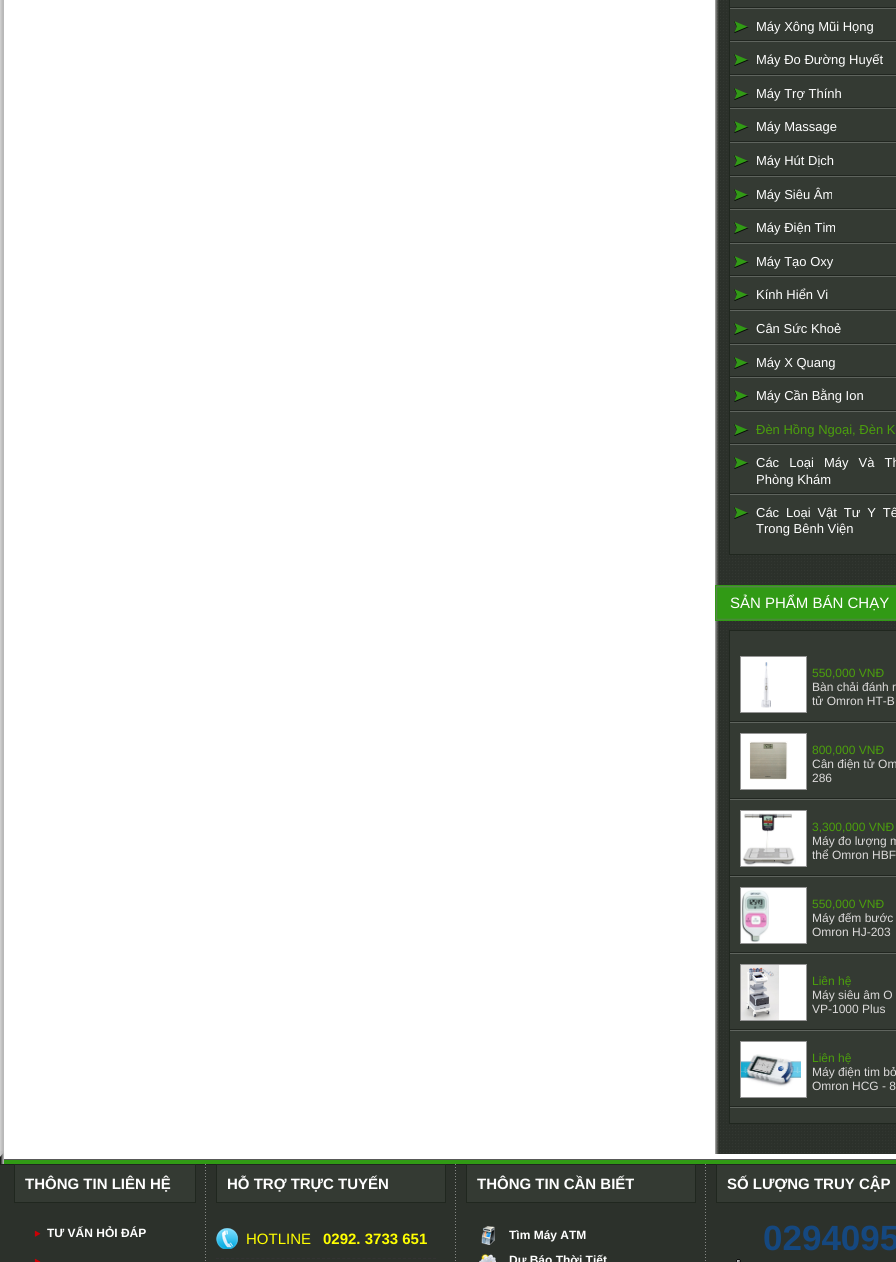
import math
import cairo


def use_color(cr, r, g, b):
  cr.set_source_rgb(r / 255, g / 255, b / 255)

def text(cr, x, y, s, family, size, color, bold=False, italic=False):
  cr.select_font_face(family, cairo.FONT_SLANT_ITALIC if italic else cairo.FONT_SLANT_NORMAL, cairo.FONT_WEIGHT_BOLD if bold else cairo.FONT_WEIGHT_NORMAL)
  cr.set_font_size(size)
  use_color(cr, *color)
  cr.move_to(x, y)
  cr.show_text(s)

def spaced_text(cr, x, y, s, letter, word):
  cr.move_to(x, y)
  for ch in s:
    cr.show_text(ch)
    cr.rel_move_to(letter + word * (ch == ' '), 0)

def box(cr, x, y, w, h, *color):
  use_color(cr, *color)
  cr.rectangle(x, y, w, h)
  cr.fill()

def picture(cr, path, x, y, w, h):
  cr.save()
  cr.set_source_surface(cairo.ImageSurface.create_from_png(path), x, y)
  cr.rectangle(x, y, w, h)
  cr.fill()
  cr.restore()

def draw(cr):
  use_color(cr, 213, 213, 213)
  cr.paint()
  picture(cr, "img_01.png", 0, 0, 4, 1157)
  box(cr, 4, 0, 892, 1159, 255, 255, 255)
  picture(cr, "img_02.png", 715, 0, 181, 1154)
  use_color(cr, 52, 58, 51)
  cr.rectangle(729.5, -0.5, 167, 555)
  cr.fill_preserve()
  use_color(cr, 32, 39, 31)
  cr.set_line_width(1)
  cr.stroke()
  picture(cr, "img_03.png", 730, 7, 166, 2)
  picture(cr, "img_03.png", 730, 40, 166, 2)
  picture(cr, "img_04.png", 734, 21, 15, 12)
  picture(cr, "img_03.png", 730, 74, 166, 2)
  picture(cr, "img_04.png", 734, 54, 15, 12)
  picture(cr, "img_03.png", 730, 107, 166, 2)
  picture(cr, "img_04.png", 734, 88, 15, 12)
  picture(cr, "img_03.png", 730, 141, 166, 2)
  picture(cr, "img_04.png", 734, 121, 15, 12)
  picture(cr, "img_03.png", 730, 175, 166, 2)
  picture(cr, "img_04.png", 734, 155, 15, 12)
  picture(cr, "img_03.png", 730, 208, 166, 2)
  picture(cr, "img_04.png", 734, 189, 15, 12)
  picture(cr, "img_03.png", 730, 242, 166, 2)
  picture(cr, "img_04.png", 734, 222, 15, 12)
  picture(cr, "img_03.png", 730, 275, 166, 2)
  picture(cr, "img_04.png", 734, 256, 15, 12)
  picture(cr, "img_03.png", 730, 309, 166, 2)
  picture(cr, "img_04.png", 734, 289, 15, 12)
  picture(cr, "img_03.png", 730, 343, 166, 2)
  picture(cr, "img_04.png", 734, 323, 15, 12)
  picture(cr, "img_03.png", 730, 376, 166, 2)
  picture(cr, "img_04.png", 734, 357, 15, 12)
  picture(cr, "img_03.png", 730, 410, 166, 2)
  picture(cr, "img_04.png", 734, 390, 15, 12)
  picture(cr, "img_03.png", 730, 443, 166, 2)
  picture(cr, "img_04.png", 734, 424, 15, 12)
  picture(cr, "img_03.png", 730, 493, 166, 2)
  picture(cr, "img_04.png", 734, 457, 15, 12)
  picture(cr, "img_04.png", 734, 507, 15, 12)
  picture(cr, "img_05.png", 715, 585, 5, 36)
  picture(cr, "img_06.png", 720, 585, 176, 36)
  use_color(cr, 52, 58, 51)
  cr.rectangle(729.5, 630.5, 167, 493)
  cr.fill_preserve()
  use_color(cr, 32, 39, 31)
  cr.stroke()
  picture(cr, "img_03.png", 730, 721, 166, 2)
  use_color(cr, 255, 255, 255)
  cr.rectangle(740.5, 656.5, 66, 56)
  cr.fill_preserve()
  use_color(cr, 150, 150, 150)
  cr.stroke()
  picture(cr, "img_07.png", 761, 662, 10, 46)
  picture(cr, "img_03.png", 730, 798, 166, 2)
  use_color(cr, 255, 255, 255)
  cr.rectangle(740.5, 733.5, 66, 56)
  cr.fill_preserve()
  use_color(cr, 150, 150, 150)
  cr.stroke()
  picture(cr, "img_08.png", 749, 741, 39, 39)
  picture(cr, "img_03.png", 730, 875, 166, 2)
  use_color(cr, 255, 255, 255)
  cr.rectangle(740.5, 810.5, 66, 56)
  cr.fill_preserve()
  use_color(cr, 150, 150, 150)
  cr.stroke()
  picture(cr, "img_09.png", 742, 813, 54, 53)
  picture(cr, "img_03.png", 730, 952, 166, 2)
  use_color(cr, 255, 255, 255)
  cr.rectangle(740.5, 887.5, 66, 56)
  cr.fill_preserve()
  use_color(cr, 150, 150, 150)
  cr.stroke()
  picture(cr, "img_10.png", 741, 890, 28, 53)
  picture(cr, "img_03.png", 730, 1029, 166, 2)
  box(cr, 779, 965, 27, 55, 255, 255, 255)
  cr.rectangle(740.5, 964.5, 66, 56)
  use_color(cr, 150, 150, 150)
  cr.stroke()
  picture(cr, "img_11.png", 741, 965, 38, 55)
  picture(cr, "img_03.png", 730, 1106, 166, 2)
  use_color(cr, 255, 255, 255)
  cr.rectangle(740.5, 1041.5, 66, 56)
  cr.fill_preserve()
  use_color(cr, 150, 150, 150)
  cr.stroke()
  picture(cr, "img_12.png", 741, 1054, 60, 33)
  picture(cr, "img_13.png", 0, 1151, 4, 111)
  picture(cr, "img_14.png", 4, 1159, 892, 103)
  picture(cr, "img_15.png", 205, 1164, 1, 97)
  use_color(cr, 52, 58, 51)
  cr.rectangle(14.5, 1164.5, 181, 38)
  cr.fill_preserve()
  use_color(cr, 32, 39, 31)
  cr.stroke()
  picture(cr, "img_16.png", 34, 1230, 7, 7)
  picture(cr, "img_17.png", 34, 1258, 7, 4)
  picture(cr, "img_15.png", 455, 1164, 1, 97)
  use_color(cr, 52, 58, 51)
  cr.rectangle(216.5, 1164.5, 229, 38)
  cr.fill_preserve()
  use_color(cr, 32, 39, 31)
  cr.stroke()
  picture(cr, "img_18.png", 216, 1228, 22, 21)
  cr.new_path()
  cr.move_to(216, 1258.5)
  cr.line_to(436, 1258.5)
  use_color(cr, 51, 51, 51)
  cr.set_dash([3, 2.05])
  cr.stroke()
  picture(cr, "img_15.png", 705, 1164, 1, 97)
  use_color(cr, 52, 58, 51)
  cr.rectangle(466.5, 1164.5, 229, 38)
  cr.fill_preserve()
  use_color(cr, 32, 39, 31)
  cr.set_dash([])
  cr.stroke()
  picture(cr, "img_19.png", 481, 1226, 14, 19)
  picture(cr, "img_20.png", 479, 1254, 17, 8)
  use_color(cr, 52, 58, 51)
  cr.rectangle(716.5, 1164.5, 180, 38)
  cr.fill_preserve()
  use_color(cr, 32, 39, 31)
  cr.stroke()
  picture(cr, "img_21.png", 736, 1259, 5, 3)
  text(cr, 756, 31, "Máy Xông Mũi Họng", "Liberation Sans", 13, (255, 255, 255))
  text(cr, 756, 64, "Máy Đo Đường Huyết", "Liberation Sans", 13, (255, 255, 255))
  text(cr, 756, 98, "Máy Trợ Thính", "Liberation Sans", 13, (255, 255, 255))
  text(cr, 756, 131, "Máy Massage", "Liberation Sans", 13, (255, 255, 255))
  text(cr, 756, 165, "Máy Hút Dịch", "Liberation Sans", 13, (255, 255, 255))
  text(cr, 756, 199, "Máy Siêu Âm", "Liberation Sans", 13, (255, 255, 255))
  text(cr, 756, 232, "Máy Điện Tim", "Liberation Sans", 13, (255, 255, 255))
  text(cr, 756, 266, "Máy Tạo Oxy", "Liberation Sans", 13, (255, 255, 255))
  text(cr, 756, 299, "Kính Hiển Vi", "Liberation Sans", 13, (255, 255, 255))
  text(cr, 756, 333, "Cân Sức Khoẻ", "Liberation Sans", 13, (255, 255, 255))
  text(cr, 756, 367, "Máy X Quang", "Liberation Sans", 13, (255, 255, 255))
  text(cr, 756, 400, "Máy Cần Bằng Ion", "Liberation Sans", 13, (255, 255, 255))
  text(cr, 756, 434, "Đèn Hồng Ngoại, Đèn K", "Liberation Sans", 13, (75, 159, 12))
  use_color(cr, 255, 255, 255)
  spaced_text(cr, 756, 467, "Các Loại Máy Và Th", 0, 6.5)
  text(cr, 756, 484, "Phòng Khám", "Liberation Sans", 13, (255, 255, 255))
  spaced_text(cr, 756, 517, "Các Loại Vật Tư Y Tế", 0, 3.25)
  text(cr, 756, 533, "Trong Bênh Viện", "Liberation Sans", 13, (255, 255, 255))
  text(cr, 730, 608, "SẢN PHẨM BÁN CHẠY", "Liberation Sans", 15, (255, 255, 255))
  text(cr, 812, 677, "550,000 VNĐ", "Liberation Sans", 12, (75, 159, 12))
  text(cr, 812, 691, "Bàn chải đánh r", "Liberation Sans", 12, (220, 218, 218))
  text(cr, 812, 705, "tử Omron HT-B", "Liberation Sans", 12, (220, 218, 218))
  text(cr, 812, 754, "800,000 VNĐ", "Liberation Sans", 12, (75, 159, 12))
  text(cr, 812, 768, "Cân điện tử Om", "Liberation Sans", 12, (220, 218, 218))
  text(cr, 812, 782, "286", "Liberation Sans", 12, (220, 218, 218))
  text(cr, 812, 831, "3,300,000 VNĐ", "Liberation Sans", 12, (75, 159, 12))
  text(cr, 812, 845, "Máy đo lượng m", "Liberation Sans", 12, (220, 218, 218))
  text(cr, 812, 859, "thể Omron HBF", "Liberation Sans", 12, (220, 218, 218))
  text(cr, 812, 908, "550,000 VNĐ", "Liberation Sans", 12, (75, 159, 12))
  text(cr, 812, 922, "Máy đếm bước", "Liberation Sans", 12, (220, 218, 218))
  text(cr, 812, 936, "Omron HJ-203", "Liberation Sans", 12, (220, 218, 218))
  text(cr, 812, 985, "Liên hệ", "Liberation Sans", 12, (75, 159, 12))
  text(cr, 812, 999, "Máy siêu âm O", "Liberation Sans", 12, (220, 218, 218))
  text(cr, 812, 1013, "VP-1000 Plus", "Liberation Sans", 12, (220, 218, 218))
  text(cr, 812, 1062, "Liên hệ", "Liberation Sans", 12, (75, 159, 12))
  text(cr, 812, 1076, "Máy điện tim bỏ", "Liberation Sans", 12, (220, 218, 218))
  text(cr, 812, 1090, "Omron HCG - 8", "Liberation Sans", 12, (220, 218, 218))
  text(cr, 25, 1189, "THÔNG TIN LIÊN HỆ", "Liberation Sans", 15, (255, 255, 255), bold=True)
  text(cr, 47, 1237, "TƯ VẤN HỎI ĐÁP", "Liberation Sans", 12, (255, 255, 255), bold=True)
  text(cr, 227, 1189, "HỖ TRỢ TRỰC TUYẾN", "Liberation Sans", 15, (255, 255, 255), bold=True)
  text(cr, 246, 1244, "HOTLINE", "Liberation Sans", 15, (255, 255, 0))
  text(cr, 323, 1244, "0292. 3733 651", "Liberation Sans", 15, (255, 255, 0), bold=True)
  text(cr, 477, 1189, "THÔNG TIN CẦN BIẾT", "Liberation Sans", 15, (255, 255, 255), bold=True)
  text(cr, 509, 1239, "Tìm Máy ATM", "Liberation Sans", 12, (255, 255, 255), bold=True)
  text(cr, 509, 1264, "Dự Báo Thời Tiết", "Liberation Sans", 12, (255, 255, 255), bold=True)
  text(cr, 727, 1189, "SỐ LƯỢNG TRUY CẬP", "Liberation Sans", 15, (255, 255, 255), bold=True)
  text(cr, 763, 1250, "0294095", "Liberation Sans", 35, (21, 72, 128), bold=True)


surface = cairo.ImageSurface(cairo.FORMAT_RGB24, 896, 1262)
cr = cairo.Context(surface)
options = cairo.FontOptions()
options.set_hint_metrics(cairo.HINT_METRICS_OFF)
options.set_hint_style(cairo.HINT_STYLE_NONE)
cr.set_font_options(options)
cr.set_miter_limit(4)
draw(cr)
surface.write_to_png("out.png")
